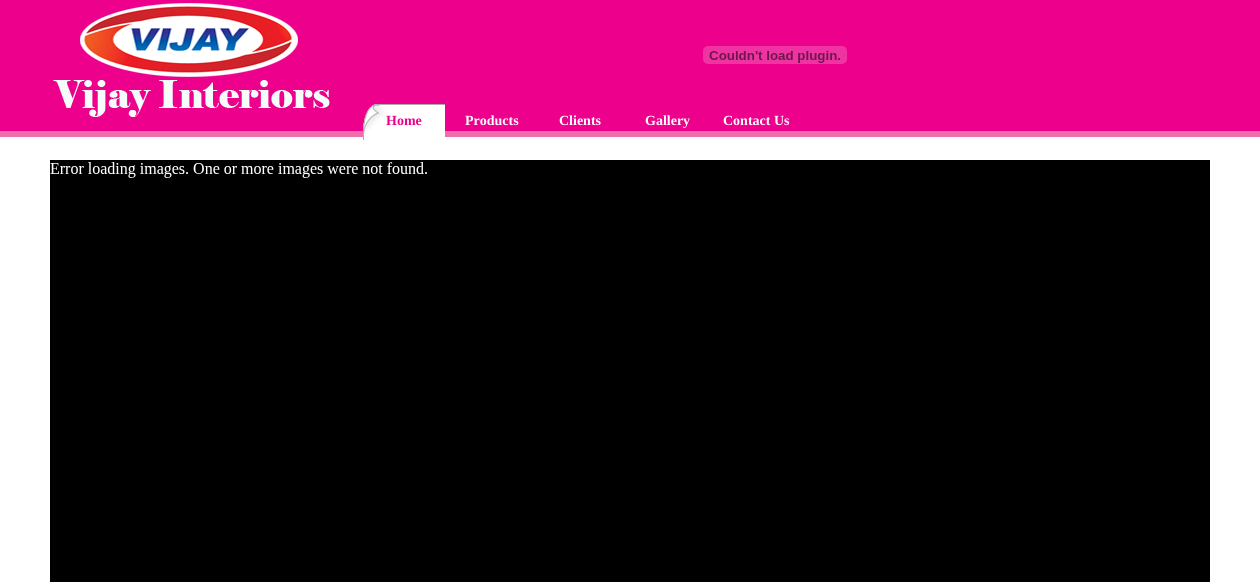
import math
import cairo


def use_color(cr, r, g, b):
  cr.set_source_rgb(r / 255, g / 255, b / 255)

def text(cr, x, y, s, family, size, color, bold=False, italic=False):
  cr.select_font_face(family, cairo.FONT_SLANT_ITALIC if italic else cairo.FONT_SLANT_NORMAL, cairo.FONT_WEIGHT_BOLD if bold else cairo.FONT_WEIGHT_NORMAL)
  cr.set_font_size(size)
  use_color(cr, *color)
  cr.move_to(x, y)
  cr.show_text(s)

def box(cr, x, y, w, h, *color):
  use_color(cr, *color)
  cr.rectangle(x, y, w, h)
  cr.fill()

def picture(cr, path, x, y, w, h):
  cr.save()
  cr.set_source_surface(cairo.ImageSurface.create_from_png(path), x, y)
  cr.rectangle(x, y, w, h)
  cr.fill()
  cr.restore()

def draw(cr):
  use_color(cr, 236, 0, 140)
  cr.paint()
  box(cr, 0, 131, 1260, 6, 240, 110, 170)
  picture(cr, "img_01.png", 53, 3, 277, 114)
  picture(cr, "img_02.png", 703, 46, 144, 18)
  box(cr, 0, 137, 1260, 445, 255, 255, 255)
  picture(cr, "img_03.png", 363, 104, 82, 36)
  picture(cr, "img_04.png", 50, 160, 1160, 422)
  text(cr, 386, 125, "Home", "Liberation Serif", 14, (236, 0, 140), bold=True)
  text(cr, 465, 125, "Products", "Liberation Serif", 14, (255, 255, 255), bold=True)
  text(cr, 559, 125, "Clients", "Liberation Serif", 14, (255, 255, 255), bold=True)
  text(cr, 645, 125, "Gallery", "Liberation Serif", 14, (255, 255, 255), bold=True)
  text(cr, 723, 125, "Contact Us", "Liberation Serif", 14, (255, 255, 255), bold=True)


surface = cairo.ImageSurface(cairo.FORMAT_RGB24, 1260, 582)
cr = cairo.Context(surface)
options = cairo.FontOptions()
options.set_hint_metrics(cairo.HINT_METRICS_OFF)
options.set_hint_style(cairo.HINT_STYLE_NONE)
cr.set_font_options(options)
cr.set_miter_limit(4)
draw(cr)
surface.write_to_png("out.png")
